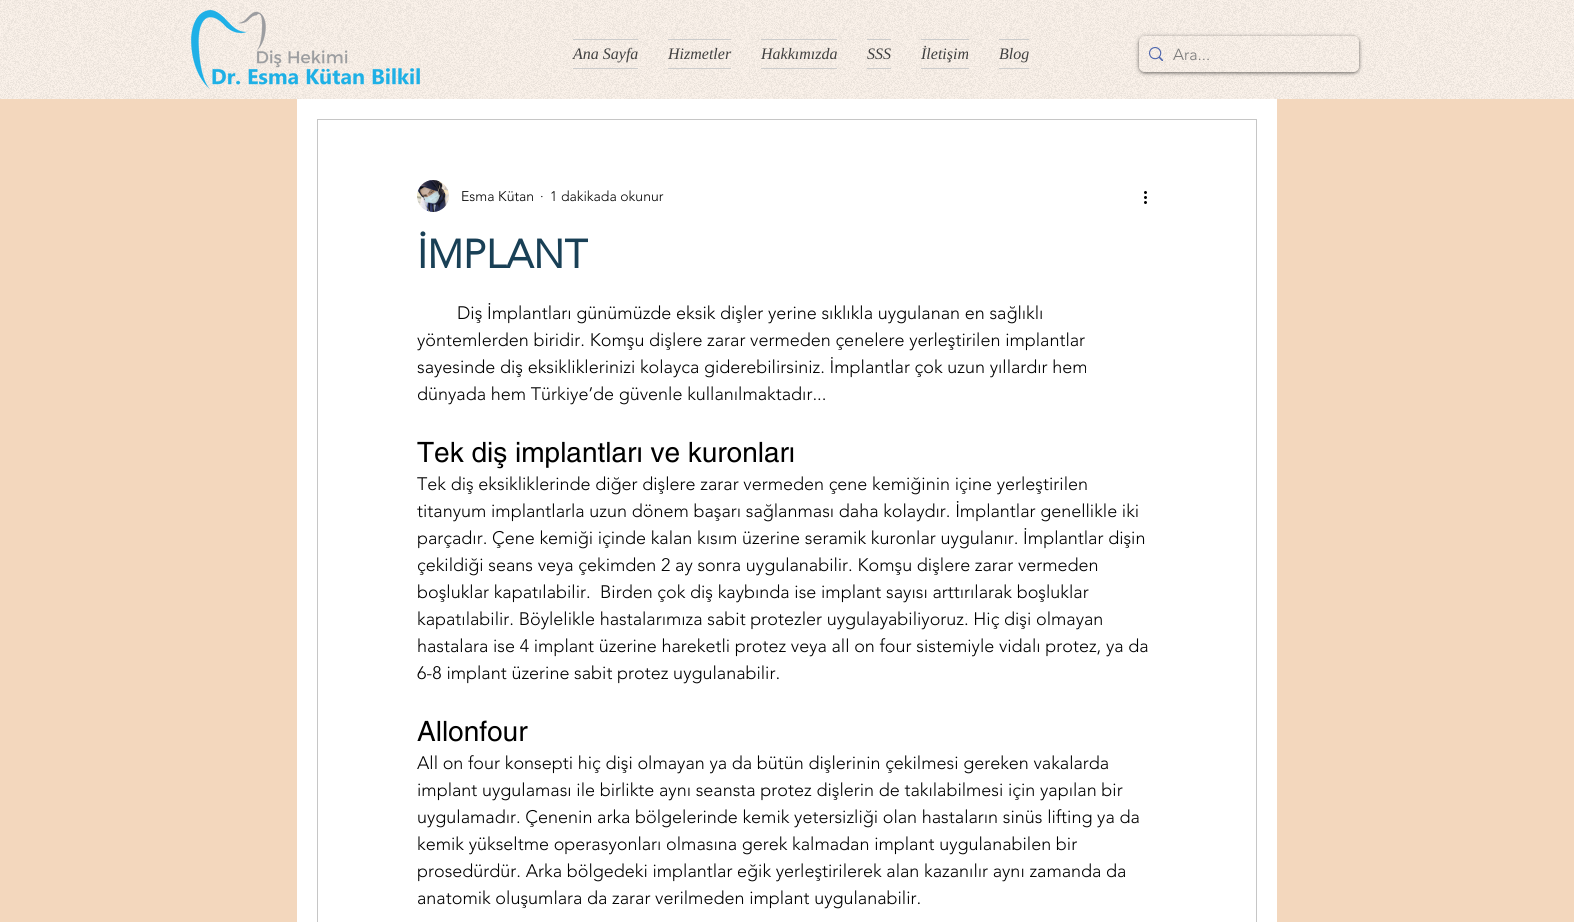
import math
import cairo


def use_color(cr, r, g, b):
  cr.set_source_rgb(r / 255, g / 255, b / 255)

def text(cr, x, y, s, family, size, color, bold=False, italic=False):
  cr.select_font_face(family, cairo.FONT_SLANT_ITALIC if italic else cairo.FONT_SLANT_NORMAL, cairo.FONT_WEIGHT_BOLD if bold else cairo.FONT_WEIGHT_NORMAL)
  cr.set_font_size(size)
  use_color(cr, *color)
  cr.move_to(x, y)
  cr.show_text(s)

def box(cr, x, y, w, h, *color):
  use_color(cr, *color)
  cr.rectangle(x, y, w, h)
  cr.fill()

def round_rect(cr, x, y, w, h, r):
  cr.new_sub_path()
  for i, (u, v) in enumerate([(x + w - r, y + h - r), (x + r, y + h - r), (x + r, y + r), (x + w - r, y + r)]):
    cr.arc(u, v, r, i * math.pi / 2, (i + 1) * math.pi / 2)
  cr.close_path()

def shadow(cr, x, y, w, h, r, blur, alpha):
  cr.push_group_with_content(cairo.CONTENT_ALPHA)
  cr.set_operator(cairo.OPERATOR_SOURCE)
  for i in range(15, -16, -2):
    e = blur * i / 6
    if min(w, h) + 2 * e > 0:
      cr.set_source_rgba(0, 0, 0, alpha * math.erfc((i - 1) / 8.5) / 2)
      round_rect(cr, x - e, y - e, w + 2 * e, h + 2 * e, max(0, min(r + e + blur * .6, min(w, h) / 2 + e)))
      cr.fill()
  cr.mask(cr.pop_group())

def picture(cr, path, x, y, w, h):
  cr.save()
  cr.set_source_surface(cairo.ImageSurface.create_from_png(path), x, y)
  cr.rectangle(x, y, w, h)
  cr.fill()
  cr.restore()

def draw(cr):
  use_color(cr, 243, 215, 189)
  cr.paint()
  box(cr, 0, 0, 1574, 99, 251, 242, 234)
  picture(cr, "img_01.png", 0, 0, 1574, 99)
  picture(cr, "img_02.png", 191, 9, 229, 80)
  box(cr, 573, 39, 65, 1, 204, 204, 204)
  box(cr, 573, 68, 65, 1, 204, 204, 204)
  box(cr, 668, 39, 63, 1, 204, 204, 204)
  box(cr, 668, 68, 63, 1, 204, 204, 204)
  box(cr, 761, 39, 76, 1, 204, 204, 204)
  box(cr, 761, 68, 76, 1, 204, 204, 204)
  box(cr, 867, 39, 24, 1, 204, 204, 204)
  box(cr, 867, 68, 24, 1, 204, 204, 204)
  box(cr, 921, 39, 48, 1, 204, 204, 204)
  box(cr, 921, 68, 48, 1, 204, 204, 204)
  box(cr, 999, 39, 30, 1, 204, 204, 204)
  box(cr, 999, 68, 30, 1, 204, 204, 204)
  cr.save()
  cr.set_fill_rule(cairo.FILL_RULE_EVEN_ODD)
  cr.new_path()
  cr.move_to(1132, 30)
  cr.line_to(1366, 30)
  cr.line_to(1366, 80)
  cr.line_to(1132, 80)
  cr.close_path()
  cr.move_to(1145, 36)
  cr.line_to(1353, 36)
  cr.curve_to(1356.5, 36, 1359, 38.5, 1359, 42)
  cr.line_to(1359, 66)
  cr.curve_to(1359, 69.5, 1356.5, 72, 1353, 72)
  cr.line_to(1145, 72)
  cr.curve_to(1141.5, 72, 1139, 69.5, 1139, 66)
  cr.line_to(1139, 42)
  cr.curve_to(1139, 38.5, 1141.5, 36, 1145, 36)
  cr.close_path()
  cr.clip()
  use_color(cr, 0, 0, 0)
  shadow(cr, 1139, 37, 220, 36, 6, 2, 0.6)
  cr.restore()
  picture(cr, "img_03.png", 1149, 47, 14, 14)
  box(cr, 297, 99, 980, 823, 255, 255, 255)
  cr.rectangle(317.5, 119.5, 939, 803)
  use_color(cr, 198, 198, 198)
  cr.set_line_width(1)
  cr.stroke()
  picture(cr, "img_04.png", 417, 180, 32, 32)
  picture(cr, "img_05.png", 1144, 191, 3, 13)
  text(cr, 573, 59, "Ana Sayfa", "Liberation Serif", 16, (64, 64, 64), italic=True)
  text(cr, 668, 59, "Hizmetler", "Liberation Serif", 16, (64, 64, 64), italic=True)
  text(cr, 761, 59, "Hakkımızda", "Liberation Serif", 16, (64, 64, 64), italic=True)
  text(cr, 867, 59, "SSS", "Liberation Serif", 16, (64, 64, 64), italic=True)
  text(cr, 921, 59, "İletişim", "Liberation Serif", 16, (64, 64, 64), italic=True)
  text(cr, 999, 59, "Blog", "Liberation Serif", 16, (64, 64, 64), italic=True)
  text(cr, 1173, 60, "Ara...", "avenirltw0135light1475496 Light", 16, (120, 120, 120))
  text(cr, 461, 201, "Esma Kütan", "avenirltw0135light1475496 Light", 14, (0, 0, 0))
  text(cr, 540, 201, "·", "avenirltw0135light1475496 Light", 14, (0, 0, 0))
  text(cr, 550, 201, "1 dakikada okunur", "avenirltw0135light1475496 Light", 14, (0, 0, 0))
  text(cr, 417, 268, "İMPLANT", "avenirltw0135light1475496", 40, (25, 64, 86), bold=True)
  text(cr, 457, 319, "Diş İmplantları günümüzde eksik dişler yerine sıklıkla uygulanan en sağlıklı", "avenirltw0135light1475496 Light", 18, (0, 0, 0))
  text(cr, 417, 346, "yöntemlerden biridir. Komşu dişlere zarar vermeden çenelere yerleştirilen implantlar", "avenirltw0135light1475496 Light", 18, (0, 0, 0))
  text(cr, 417, 373, "sayesinde diş eksikliklerinizi kolayca giderebilirsiniz. İmplantlar çok uzun yıllardır hem", "avenirltw0135light1475496 Light", 18, (0, 0, 0))
  text(cr, 417, 400, "dünyada hem Türkiye’de güvenle kullanılmaktadır...", "avenirltw0135light1475496 Light", 18, (0, 0, 0))
  text(cr, 417, 462, "Tek diş implantları ve kuronları", "helvetica", 28, (0, 0, 0))
  text(cr, 417, 490, "Tek diş eksikliklerinde diğer dişlere zarar vermeden çene kemiğinin içine yerleştirilen", "avenirltw0135light1475496 Light", 18, (0, 0, 0))
  text(cr, 417, 517, "titanyum implantlarla uzun dönem başarı sağlanması daha kolaydır. İmplantlar genellikle iki", "avenirltw0135light1475496 Light", 18, (0, 0, 0))
  text(cr, 417, 544, "parçadır. Çene kemiği içinde kalan kısım üzerine seramik kuronlar uygulanır. İmplantlar dişin", "avenirltw0135light1475496 Light", 18, (0, 0, 0))
  text(cr, 417, 571, "çekildiği seans veya çekimden 2 ay sonra uygulanabilir. Komşu dişlere zarar vermeden", "avenirltw0135light1475496 Light", 18, (0, 0, 0))
  text(cr, 417, 598, "boşluklar kapatılabilir.  Birden çok diş kaybında ise implant sayısı arttırılarak boşluklar", "avenirltw0135light1475496 Light", 18, (0, 0, 0))
  text(cr, 417, 625, "kapatılabilir. Böylelikle hastalarımıza sabit protezler uygulayabiliyoruz. Hiç dişi olmayan", "avenirltw0135light1475496 Light", 18, (0, 0, 0))
  text(cr, 417, 652, "hastalara ise 4 implant üzerine hareketli protez veya all on four sistemiyle vidalı protez, ya da", "avenirltw0135light1475496 Light", 18, (0, 0, 0))
  text(cr, 417, 679, "6-8 implant üzerine sabit protez uygulanabilir.", "avenirltw0135light1475496 Light", 18, (0, 0, 0))
  text(cr, 417, 741, "Allonfour", "helvetica", 28, (0, 0, 0))
  text(cr, 417, 769, "All on four konsepti hiç dişi olmayan ya da bütün dişlerinin çekilmesi gereken vakalarda", "avenirltw0135light1475496 Light", 18, (0, 0, 0))
  text(cr, 417, 796, "implant uygulaması ile birlikte aynı seansta protez dişlerin de takılabilmesi için yapılan bir", "avenirltw0135light1475496 Light", 18, (0, 0, 0))
  text(cr, 417, 823, "uygulamadır. Çenenin arka bölgelerinde kemik yetersizliği olan hastaların sinüs lifting ya da", "avenirltw0135light1475496 Light", 18, (0, 0, 0))
  text(cr, 417, 850, "kemik yükseltme operasyonları olmasına gerek kalmadan implant uygulanabilen bir", "avenirltw0135light1475496 Light", 18, (0, 0, 0))
  text(cr, 417, 877, "prosedürdür. Arka bölgedeki implantlar eğik yerleştirilerek alan kazanılır aynı zamanda da", "avenirltw0135light1475496 Light", 18, (0, 0, 0))
  text(cr, 417, 904, "anatomik oluşumlara da zarar verilmeden implant uygulanabilir.", "avenirltw0135light1475496 Light", 18, (0, 0, 0))


surface = cairo.ImageSurface(cairo.FORMAT_RGB24, 1574, 922)
cr = cairo.Context(surface)
options = cairo.FontOptions()
options.set_hint_metrics(cairo.HINT_METRICS_OFF)
options.set_hint_style(cairo.HINT_STYLE_NONE)
cr.set_font_options(options)
cr.set_miter_limit(4)
draw(cr)
surface.write_to_png("out.png")
